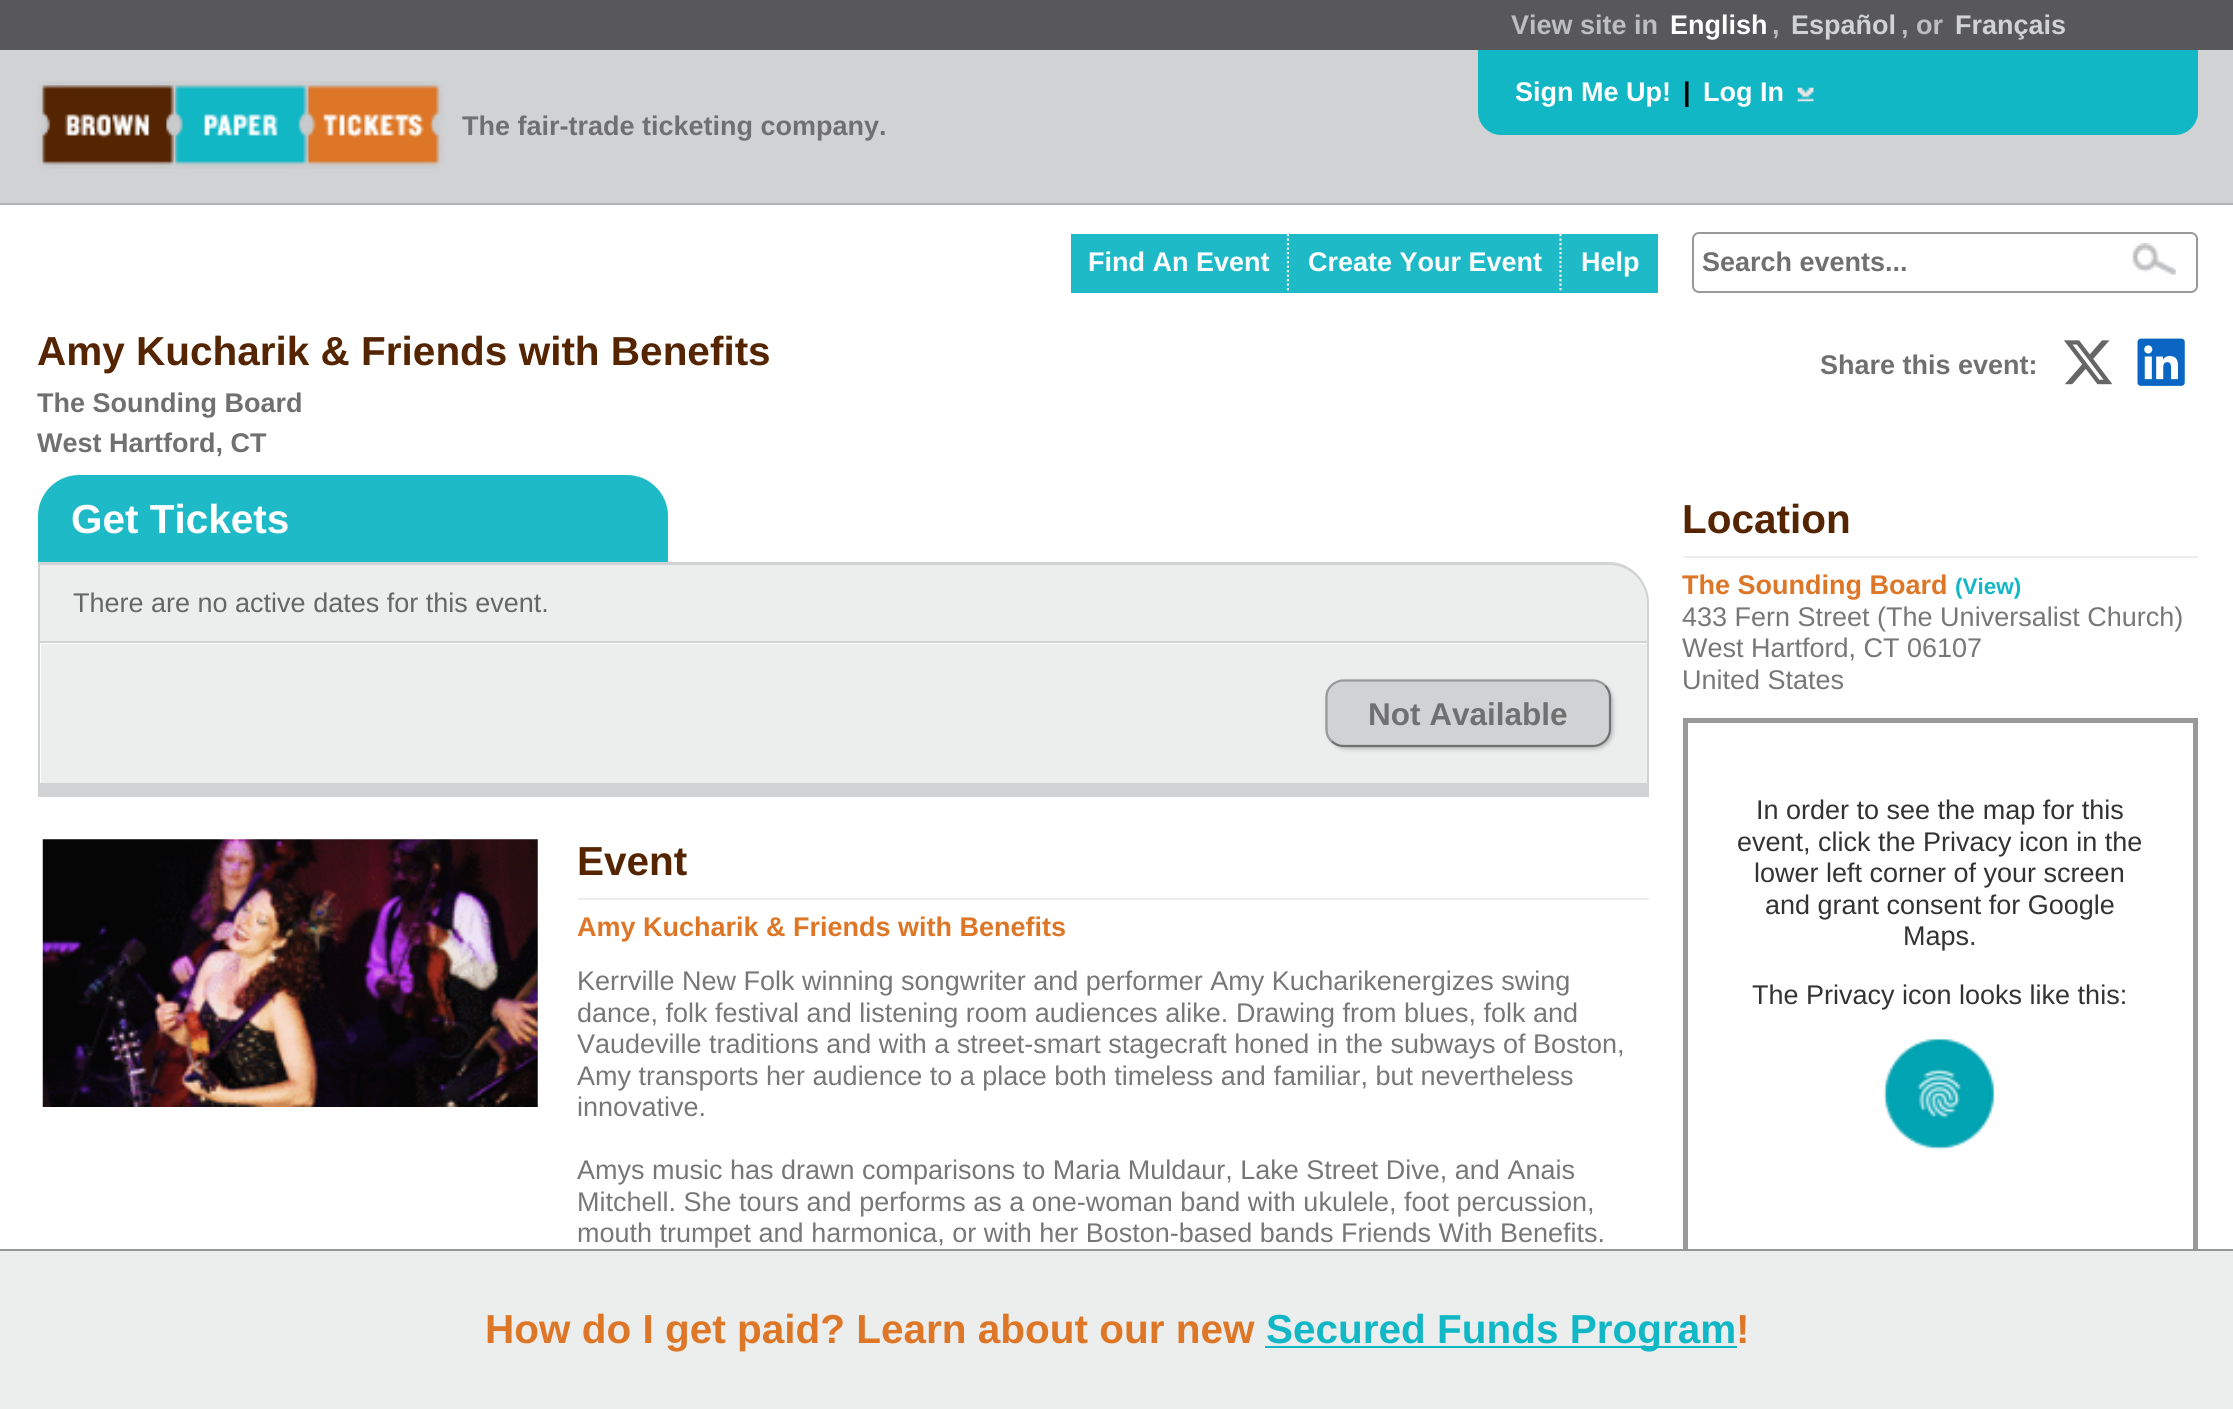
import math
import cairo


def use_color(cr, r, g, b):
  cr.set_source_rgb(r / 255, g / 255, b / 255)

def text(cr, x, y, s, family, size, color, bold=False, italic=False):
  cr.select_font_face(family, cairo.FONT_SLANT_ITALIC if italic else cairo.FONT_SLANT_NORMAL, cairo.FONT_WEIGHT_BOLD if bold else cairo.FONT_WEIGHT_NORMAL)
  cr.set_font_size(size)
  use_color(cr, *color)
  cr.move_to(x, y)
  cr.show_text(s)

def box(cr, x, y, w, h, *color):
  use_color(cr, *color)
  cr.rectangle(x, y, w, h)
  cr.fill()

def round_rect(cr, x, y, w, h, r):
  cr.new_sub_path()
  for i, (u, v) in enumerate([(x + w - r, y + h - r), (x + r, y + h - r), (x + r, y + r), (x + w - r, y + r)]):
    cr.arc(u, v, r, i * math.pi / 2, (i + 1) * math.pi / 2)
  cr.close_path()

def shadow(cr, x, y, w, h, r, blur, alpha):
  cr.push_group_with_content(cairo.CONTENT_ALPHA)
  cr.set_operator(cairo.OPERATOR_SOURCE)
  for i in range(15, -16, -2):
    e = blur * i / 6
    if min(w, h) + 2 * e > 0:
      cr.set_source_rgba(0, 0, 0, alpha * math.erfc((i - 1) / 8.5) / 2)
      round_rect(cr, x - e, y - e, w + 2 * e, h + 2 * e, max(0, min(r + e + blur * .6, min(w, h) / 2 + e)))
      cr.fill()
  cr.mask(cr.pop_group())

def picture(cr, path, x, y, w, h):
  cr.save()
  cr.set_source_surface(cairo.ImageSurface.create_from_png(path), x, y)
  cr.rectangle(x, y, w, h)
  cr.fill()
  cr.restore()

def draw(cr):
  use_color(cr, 88, 88, 90)
  cr.paint()
  box(cr, 0, 50, 2233, 153, 209, 210, 212)
  box(cr, 0, 203, 2233, 2, 178, 180, 182)
  picture(cr, "img_01.png", 37, 81, 407, 88)
  use_color(cr, 18, 183, 198)
  cr.new_path()
  cr.move_to(1478, 50)
  cr.line_to(2198, 50)
  cr.line_to(2198, 112)
  cr.curve_to(2198, 124.5, 2187.5, 135, 2175, 135)
  cr.line_to(1501, 135)
  cr.curve_to(1488.5, 135, 1478, 124.5, 1478, 112)
  cr.close_path()
  cr.fill()
  picture(cr, "img_02.png", 1797, 87, 17, 15)
  box(cr, 0, 205, 2233, 1044, 255, 255, 255)
  box(cr, 1071, 234, 218, 59, 31, 186, 200)
  cr.new_path()
  cr.move_to(1288, 234)
  cr.line_to(1288, 292.5)
  use_color(cr, 239, 239, 239)
  cr.set_line_width(2.2)
  cr.set_dash([2.25, 2.25])
  cr.stroke()
  box(cr, 1289, 234, 369, 59, 31, 186, 200)
  cr.new_path()
  cr.move_to(1560.5, 234)
  cr.line_to(1560.5, 292.5)
  use_color(cr, 239, 239, 239)
  cr.stroke()
  round_rect(cr, 1693, 233, 504, 59, 6)
  use_color(cr, 153, 153, 153)
  cr.set_line_width(2)
  cr.set_dash([])
  cr.stroke()
  picture(cr, "img_03.png", 2132, 243, 44, 32)
  picture(cr, "img_04.png", 2064, 340, 49, 45)
  picture(cr, "img_05.png", 2137, 338, 48, 48)
  use_color(cr, 31, 186, 200)
  cr.new_path()
  cr.move_to(79, 475)
  cr.line_to(627, 475)
  cr.curve_to(649.5, 475, 668, 493.5, 668, 516)
  cr.line_to(668, 563)
  cr.line_to(38, 563)
  cr.line_to(38, 516)
  cr.curve_to(38, 493.5, 56.5, 475, 79, 475)
  cr.close_path()
  cr.fill()
  use_color(cr, 236, 237, 237)
  cr.new_path()
  cr.move_to(38, 563)
  cr.line_to(1608, 563)
  cr.curve_to(1630.5, 563, 1649, 581.5, 1649, 604)
  cr.line_to(1649, 641)
  cr.line_to(38, 641)
  cr.close_path()
  cr.fill()
  use_color(cr, 209, 210, 212)
  cr.set_fill_rule(cairo.FILL_RULE_EVEN_ODD)
  cr.new_path()
  cr.move_to(38, 562)
  cr.line_to(1609, 562)
  cr.curve_to(1631, 562, 1649, 581, 1649, 603)
  cr.line_to(1649, 641)
  cr.line_to(38, 641)
  cr.close_path()
  cr.move_to(40, 565)
  cr.line_to(1609, 565)
  cr.curve_to(1630, 565, 1647, 582, 1647, 603)
  cr.line_to(1647, 641)
  cr.line_to(40, 641)
  cr.close_path()
  cr.fill()
  box(cr, 41, 644, 1606, 139, 236, 237, 237)
  box(cr, 38, 641, 1611, 2, 209, 210, 212)
  box(cr, 1647, 641, 2, 142, 209, 210, 212)
  box(cr, 40, 783, 1609, 14, 209, 210, 212)
  box(cr, 38, 641, 2, 156, 209, 210, 212)
  use_color(cr, 184, 184, 184)
  shadow(cr, 1328, 682, 285, 67, 18, 2, 1)
  use_color(cr, 209, 210, 212)
  round_rect(cr, 1325, 680, 286, 67, 18)
  cr.fill()
  cr.new_path()
  cr.move_to(1605, 685.5)
  cr.curve_to(1608, 688.5, 1610, 693, 1610, 697.5)
  cr.line_to(1610, 729)
  cr.curve_to(1610, 733.5, 1608, 738, 1605, 741)
  cr.curve_to(1602, 744, 1597.5, 746, 1593, 746)
  cr.line_to(1343, 746)
  cr.curve_to(1339, 746, 1334.5, 744, 1331.5, 741)
  use_color(cr, 112, 112, 112)
  cr.set_line_width(2.2)
  cr.stroke()
  cr.new_path()
  cr.move_to(1331.5, 741)
  cr.curve_to(1328, 738, 1326.5, 733.5, 1326.5, 729)
  cr.line_to(1326.5, 697.5)
  cr.curve_to(1326.5, 693, 1328, 688.5, 1331.5, 685.5)
  cr.curve_to(1334.5, 682.5, 1339, 680.5, 1343, 680.5)
  cr.line_to(1593, 680.5)
  cr.curve_to(1597.5, 680.5, 1602, 682.5, 1605, 685.5)
  use_color(cr, 153, 153, 153)
  cr.stroke()
  picture(cr, "img_06.png", 42, 839, 496, 268)
  box(cr, 578, 898, 1071, 2, 236, 237, 237)
  box(cr, 1683, 556, 515, 2, 236, 237, 237)
  cr.rectangle(1685.5, 720.5, 510, 555)
  use_color(cr, 153, 153, 153)
  cr.set_line_width(5)
  cr.stroke()
  picture(cr, "img_07.png", 1883, 1037, 113, 113)
  box(cr, 0, 1251, 2233, 158, 236, 237, 237)
  box(cr, 0, 1249, 2233, 2, 150, 150, 153)
  box(cr, 1265, 1346, 472, 2, 18, 183, 198)
  text(cr, 1511, 34, "View site in", "Liberation Sans", 27, (189, 190, 192), bold=True)
  text(cr, 1670, 34, "English", "Liberation Sans", 27, (255, 255, 255), bold=True)
  text(cr, 1772, 34, ",", "Liberation Sans", 27, (189, 190, 192), bold=True)
  text(cr, 1791, 34, "Español", "Liberation Sans", 27, (209, 210, 212), bold=True)
  text(cr, 1901, 34, ", or", "Liberation Sans", 27, (189, 190, 192), bold=True)
  text(cr, 1955, 34, "Français", "Liberation Sans", 27, (209, 210, 212), bold=True)
  text(cr, 1515, 101, "Sign Me Up!", "Liberation Sans", 27, (255, 255, 255), bold=True)
  text(cr, 1683, 101, "|", "Liberation Sans", 27, (0, 0, 0), bold=True)
  text(cr, 1703, 101, "Log In", "Liberation Sans", 27, (255, 255, 255), bold=True)
  text(cr, 462, 135, "The fair-trade ticketing company.", "Liberation Sans", 27, (112, 112, 112), bold=True)
  text(cr, 1088, 271, "Find An Event", "Liberation Sans", 27, (255, 255, 255), bold=True)
  text(cr, 1308, 271, "Create Your Event", "Liberation Sans", 27, (255, 255, 255), bold=True)
  text(cr, 1581, 271, "Help", "Liberation Sans", 27, (255, 255, 255), bold=True)
  text(cr, 1702, 271, "Search events...", "Liberation Sans", 27, (112, 112, 112), bold=True)
  text(cr, 37, 365, "Amy Kucharik & Friends with Benefits", "Liberation Sans", 40.5, (85, 37, 2), bold=True)
  text(cr, 37, 412, "The Sounding Board", "Liberation Sans", 27, (112, 112, 112), bold=True)
  text(cr, 37, 452, "West Hartford, CT", "Liberation Sans", 27, (112, 112, 112), bold=True)
  text(cr, 1820, 374, "Share this event:", "Liberation Sans", 27, (112, 112, 112), bold=True)
  text(cr, 71, 533, "Get Tickets", "Liberation Sans", 40.5, (255, 255, 255), bold=True)
  text(cr, 73, 612, "There are no active dates for this event.", "Liberation Sans", 27, (102, 102, 102))
  text(cr, 1368, 725, "Not Available", "Liberation Sans", 31.5, (112, 112, 112), bold=True)
  text(cr, 577, 875, "Event", "Liberation Sans", 40.5, (85, 37, 2), bold=True)
  text(cr, 577, 936, "Amy Kucharik & Friends with Benefits", "Liberation Sans", 27, (221, 119, 39), bold=True)
  text(cr, 577, 990, "Kerrville New Folk winning songwriter and performer Amy Kucharikenergizes swing", "Liberation Sans", 27, (119, 119, 119))
  text(cr, 577, 1022, "dance, folk festival and listening room audiences alike. Drawing from blues, folk and", "Liberation Sans", 27, (119, 119, 119))
  text(cr, 577, 1053, "Vaudeville traditions and with a street-smart stagecraft honed in the subways of Boston,", "Liberation Sans", 27, (119, 119, 119))
  text(cr, 577, 1085, "Amy transports her audience to a place both timeless and familiar, but nevertheless", "Liberation Sans", 27, (119, 119, 119))
  text(cr, 577, 1116, "innovative.", "Liberation Sans", 27, (119, 119, 119))
  text(cr, 577, 1179, "Amys music has drawn comparisons to Maria Muldaur, Lake Street Dive, and Anais", "Liberation Sans", 27, (119, 119, 119))
  text(cr, 577, 1211, "Mitchell. She tours and performs as a one-woman band with ukulele, foot percussion,", "Liberation Sans", 27, (119, 119, 119))
  text(cr, 577, 1242, "mouth trumpet and harmonica, or with her Boston-based bands Friends With Benefits.", "Liberation Sans", 27, (119, 119, 119))
  text(cr, 1682, 533, "Location", "Liberation Sans", 40.5, (85, 37, 2), bold=True)
  text(cr, 1682, 594, "The Sounding Board", "Liberation Sans", 27, (221, 119, 39), bold=True)
  text(cr, 1955, 594, "(View)", "Liberation Sans", 22.5, (18, 183, 198), bold=True)
  text(cr, 1682, 626, "433 Fern Street (The Universalist Church)", "Liberation Sans", 27, (119, 119, 119))
  text(cr, 1682, 657, "West Hartford, CT 06107", "Liberation Sans", 27, (119, 119, 119))
  text(cr, 1682, 689, "United States", "Liberation Sans", 27, (119, 119, 119))
  text(cr, 1756, 819, "In order to see the map for this", "Liberation Sans", 27, (51, 51, 51))
  text(cr, 1737, 851, "event, click the Privacy icon in the", "Liberation Sans", 27, (51, 51, 51))
  text(cr, 1754, 882, "lower left corner of your screen", "Liberation Sans", 27, (51, 51, 51))
  text(cr, 1765, 914, "and grant consent for Google", "Liberation Sans", 27, (51, 51, 51))
  text(cr, 1903, 945, "Maps.", "Liberation Sans", 27, (51, 51, 51))
  text(cr, 1752, 1004, "The Privacy icon looks like this:", "Liberation Sans", 27, (51, 51, 51))
  text(cr, 485, 1343, "How do I get paid? Learn about our new", "Liberation Sans", 40.5, (221, 119, 39), bold=True)
  text(cr, 1266, 1343, "Secured Funds Program", "Liberation Sans", 40.5, (18, 183, 198), bold=True)
  text(cr, 1736, 1343, "!", "Liberation Sans", 40.5, (221, 119, 39), bold=True)


surface = cairo.ImageSurface(cairo.FORMAT_RGB24, 2233, 1409)
cr = cairo.Context(surface)
options = cairo.FontOptions()
options.set_hint_metrics(cairo.HINT_METRICS_OFF)
options.set_hint_style(cairo.HINT_STYLE_NONE)
cr.set_font_options(options)
cr.set_miter_limit(4)
draw(cr)
surface.write_to_png("out.png")
